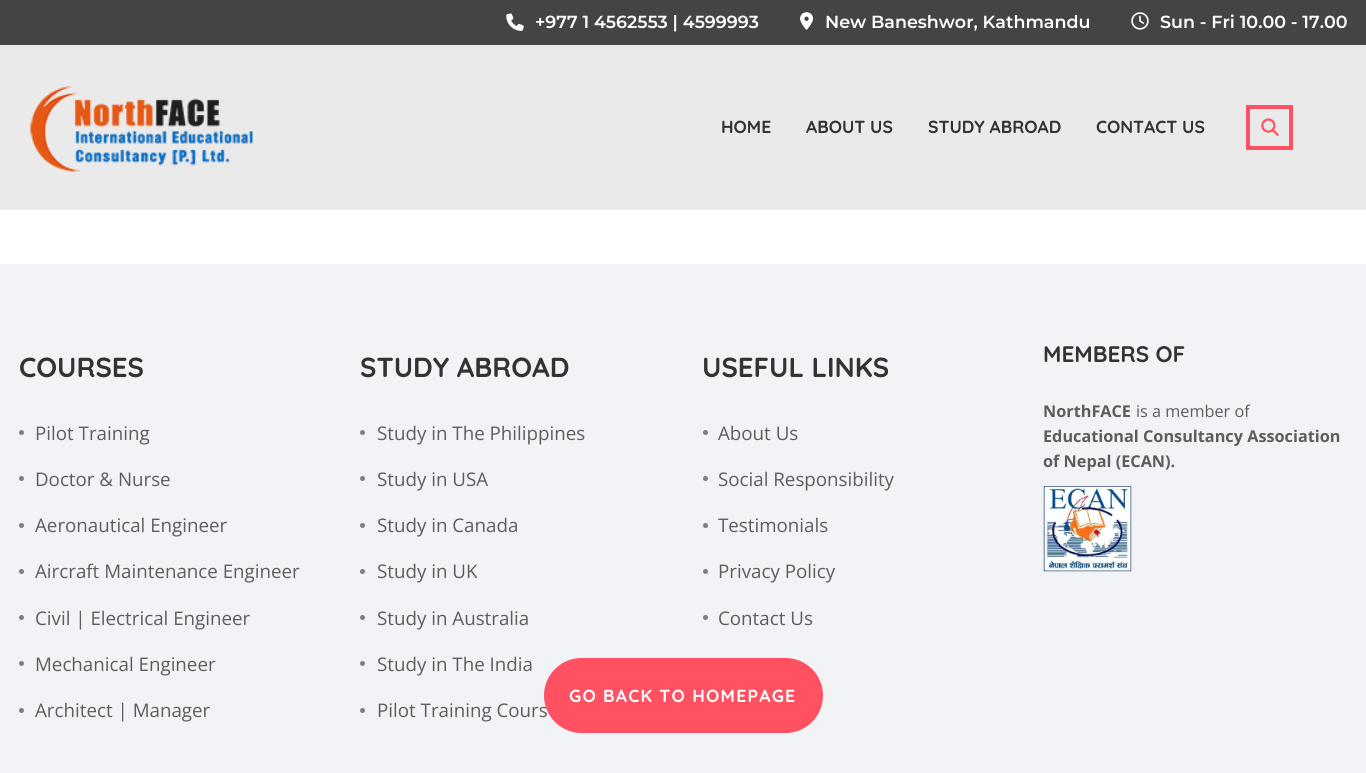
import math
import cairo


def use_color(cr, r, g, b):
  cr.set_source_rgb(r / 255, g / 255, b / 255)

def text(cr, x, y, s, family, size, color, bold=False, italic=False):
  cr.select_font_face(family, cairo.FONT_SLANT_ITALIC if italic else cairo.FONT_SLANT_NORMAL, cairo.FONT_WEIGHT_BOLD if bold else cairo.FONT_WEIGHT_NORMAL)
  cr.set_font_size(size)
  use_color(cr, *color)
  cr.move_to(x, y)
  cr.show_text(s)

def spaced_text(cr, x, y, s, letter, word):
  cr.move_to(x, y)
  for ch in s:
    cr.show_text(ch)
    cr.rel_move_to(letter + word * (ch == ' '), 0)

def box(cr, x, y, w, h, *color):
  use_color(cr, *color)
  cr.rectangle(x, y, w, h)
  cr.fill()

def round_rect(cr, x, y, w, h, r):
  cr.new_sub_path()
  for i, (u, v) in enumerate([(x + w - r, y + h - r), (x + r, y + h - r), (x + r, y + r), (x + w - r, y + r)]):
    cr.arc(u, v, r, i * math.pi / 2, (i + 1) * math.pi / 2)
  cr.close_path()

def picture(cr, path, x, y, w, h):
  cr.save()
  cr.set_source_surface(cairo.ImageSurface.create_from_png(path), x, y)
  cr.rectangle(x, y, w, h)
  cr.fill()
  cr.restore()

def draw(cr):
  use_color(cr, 255, 255, 255)
  cr.paint()
  box(cr, 0, 0, 1366, 45, 68, 68, 68)
  picture(cr, "img_01.png", 506, 13, 18, 18)
  picture(cr, "img_02.png", 800, 12, 14, 18)
  picture(cr, "img_03.png", 1131, 12, 18, 18)
  box(cr, 0, 45, 1366, 165, 234, 234, 234)
  picture(cr, "img_04.png", 29, 86, 224, 86)
  cr.rectangle(1248, 107, 43, 41)
  use_color(cr, 255, 81, 97)
  cr.set_line_width(4)
  cr.stroke()
  picture(cr, "img_05.png", 1261, 118, 18, 18)
  box(cr, 0, 264, 1366, 509, 242, 243, 247)
  use_color(cr, 127, 127, 129)
  cr.arc(21.5, 432.5, 2.5, 0, 2 * math.pi)
  cr.fill()
  cr.arc(21.5, 478.5, 2.5, 0, 2 * math.pi)
  cr.fill()
  cr.arc(21.5, 525.5, 2.5, 0, 2 * math.pi)
  cr.fill()
  cr.arc(21.5, 571.5, 2.5, 0, 2 * math.pi)
  cr.fill()
  cr.arc(21.5, 617.5, 2.5, 0, 2 * math.pi)
  cr.fill()
  cr.arc(21.5, 663.5, 2.5, 0, 2 * math.pi)
  cr.fill()
  cr.arc(21.5, 710.5, 2.5, 0, 2 * math.pi)
  cr.fill()
  cr.arc(362.5, 432.5, 2.5, 0, 2 * math.pi)
  cr.fill()
  cr.arc(362.5, 478.5, 2.5, 0, 2 * math.pi)
  cr.fill()
  cr.arc(362.5, 525.5, 2.5, 0, 2 * math.pi)
  cr.fill()
  cr.arc(362.5, 571.5, 2.5, 0, 2 * math.pi)
  cr.fill()
  cr.arc(362.5, 617.5, 2.5, 0, 2 * math.pi)
  cr.fill()
  cr.arc(362.5, 663.5, 2.5, 0, 2 * math.pi)
  cr.fill()
  cr.arc(362.5, 710.5, 2.5, 0, 2 * math.pi)
  cr.fill()
  cr.arc(705.5, 432.5, 2.5, 0, 2 * math.pi)
  cr.fill()
  cr.arc(705.5, 478.5, 2.5, 0, 2 * math.pi)
  cr.fill()
  cr.arc(705.5, 525.5, 2.5, 0, 2 * math.pi)
  cr.fill()
  cr.arc(705.5, 571.5, 2.5, 0, 2 * math.pi)
  cr.fill()
  cr.arc(705.5, 617.5, 2.5, 0, 2 * math.pi)
  cr.fill()
  picture(cr, "img_06.png", 1043, 486, 89, 86)
  text(cr, 535, 28, "+977 1 4562553 | 4599993", "Montserrat SemiBold", 17.5, (255, 255, 255))
  text(cr, 825, 28, "New Baneshwor, Kathmandu", "Montserrat SemiBold", 17.5, (255, 255, 255))
  text(cr, 1160, 28, "Sun - Fri 10.00 - 17.00", "Montserrat SemiBold", 17.5, (255, 255, 255))
  text(cr, 721, 133, "HOME", "Quicksand", 17.5, (51, 51, 51), bold=True)
  text(cr, 806, 133, "ABOUT US", "Quicksand", 17.5, (51, 51, 51), bold=True)
  text(cr, 928, 133, "STUDY ABROAD", "Quicksand", 17.5, (51, 51, 51), bold=True)
  text(cr, 1096, 133, "CONTACT US", "Quicksand", 17.5, (51, 51, 51), bold=True)
  text(cr, 19, 377, "COURSES", "Quicksand", 27.5, (51, 51, 51), bold=True)
  text(cr, 35, 440, "Pilot Training", "Open Sans", 18.75, (91, 94, 93))
  text(cr, 35, 486, "Doctor & Nurse", "Open Sans", 18.75, (91, 94, 93))
  text(cr, 35, 532, "Aeronautical Engineer", "Open Sans", 18.75, (91, 94, 93))
  text(cr, 35, 578, "Aircraft Maintenance Engineer", "Open Sans", 18.75, (91, 94, 93))
  text(cr, 35, 625, "Civil | Electrical Engineer", "Open Sans", 18.75, (91, 94, 93))
  text(cr, 35, 671, "Mechanical Engineer", "Open Sans", 18.75, (91, 94, 93))
  text(cr, 35, 717, "Architect | Manager", "Open Sans", 18.75, (91, 94, 93))
  text(cr, 360, 377, "STUDY ABROAD", "Quicksand", 27.5, (51, 51, 51), bold=True)
  text(cr, 377, 440, "Study in The Philippines", "Open Sans", 18.75, (91, 94, 93))
  text(cr, 377, 486, "Study in USA", "Open Sans", 18.75, (91, 94, 93))
  text(cr, 377, 532, "Study in Canada", "Open Sans", 18.75, (91, 94, 93))
  text(cr, 377, 578, "Study in UK", "Open Sans", 18.75, (91, 94, 93))
  text(cr, 377, 625, "Study in Australia", "Open Sans", 18.75, (91, 94, 93))
  text(cr, 377, 671, "Study in The India", "Open Sans", 18.75, (91, 94, 93))
  text(cr, 377, 717, "Pilot Training Cours", "Open Sans", 18.75, (91, 94, 93))
  use_color(cr, 255, 81, 97)
  round_rect(cr, 544, 658, 279, 75, 37.5)
  cr.fill()
  cr.select_font_face("Quicksand", cairo.FONT_SLANT_NORMAL, cairo.FONT_WEIGHT_BOLD)
  cr.set_font_size(17.5)
  use_color(cr, 255, 255, 255)
  spaced_text(cr, 569, 702, "GO BACK TO HOMEPAGE", 1.25, 0)
  text(cr, 702, 377, "USEFUL LINKS", "Quicksand", 27.5, (51, 51, 51), bold=True)
  text(cr, 718, 440, "About Us", "Open Sans", 18.75, (91, 94, 93))
  text(cr, 718, 486, "Social Responsibility", "Open Sans", 18.75, (91, 94, 93))
  text(cr, 718, 532, "Testimonials", "Open Sans", 18.75, (91, 94, 93))
  text(cr, 718, 578, "Privacy Policy", "Open Sans", 18.75, (91, 94, 93))
  text(cr, 718, 625, "Contact Us", "Open Sans", 18.75, (91, 94, 93))
  text(cr, 1043, 362, "MEMBERS OF", "Quicksand", 22.5, (51, 51, 51), bold=True)
  text(cr, 1043, 417, "NorthFACE", "Open Sans", 16.25, (91, 94, 93), bold=True)
  text(cr, 1136, 417, "is a member of", "Open Sans", 16.25, (91, 94, 93))
  text(cr, 1043, 442, "Educational Consultancy Association", "Open Sans", 16.25, (91, 94, 93), bold=True)
  text(cr, 1043, 467, "of Nepal (ECAN).", "Open Sans", 16.25, (91, 94, 93), bold=True)


surface = cairo.ImageSurface(cairo.FORMAT_RGB24, 1366, 773)
cr = cairo.Context(surface)
options = cairo.FontOptions()
options.set_hint_metrics(cairo.HINT_METRICS_OFF)
options.set_hint_style(cairo.HINT_STYLE_NONE)
cr.set_font_options(options)
cr.set_miter_limit(4)
draw(cr)
surface.write_to_png("out.png")
